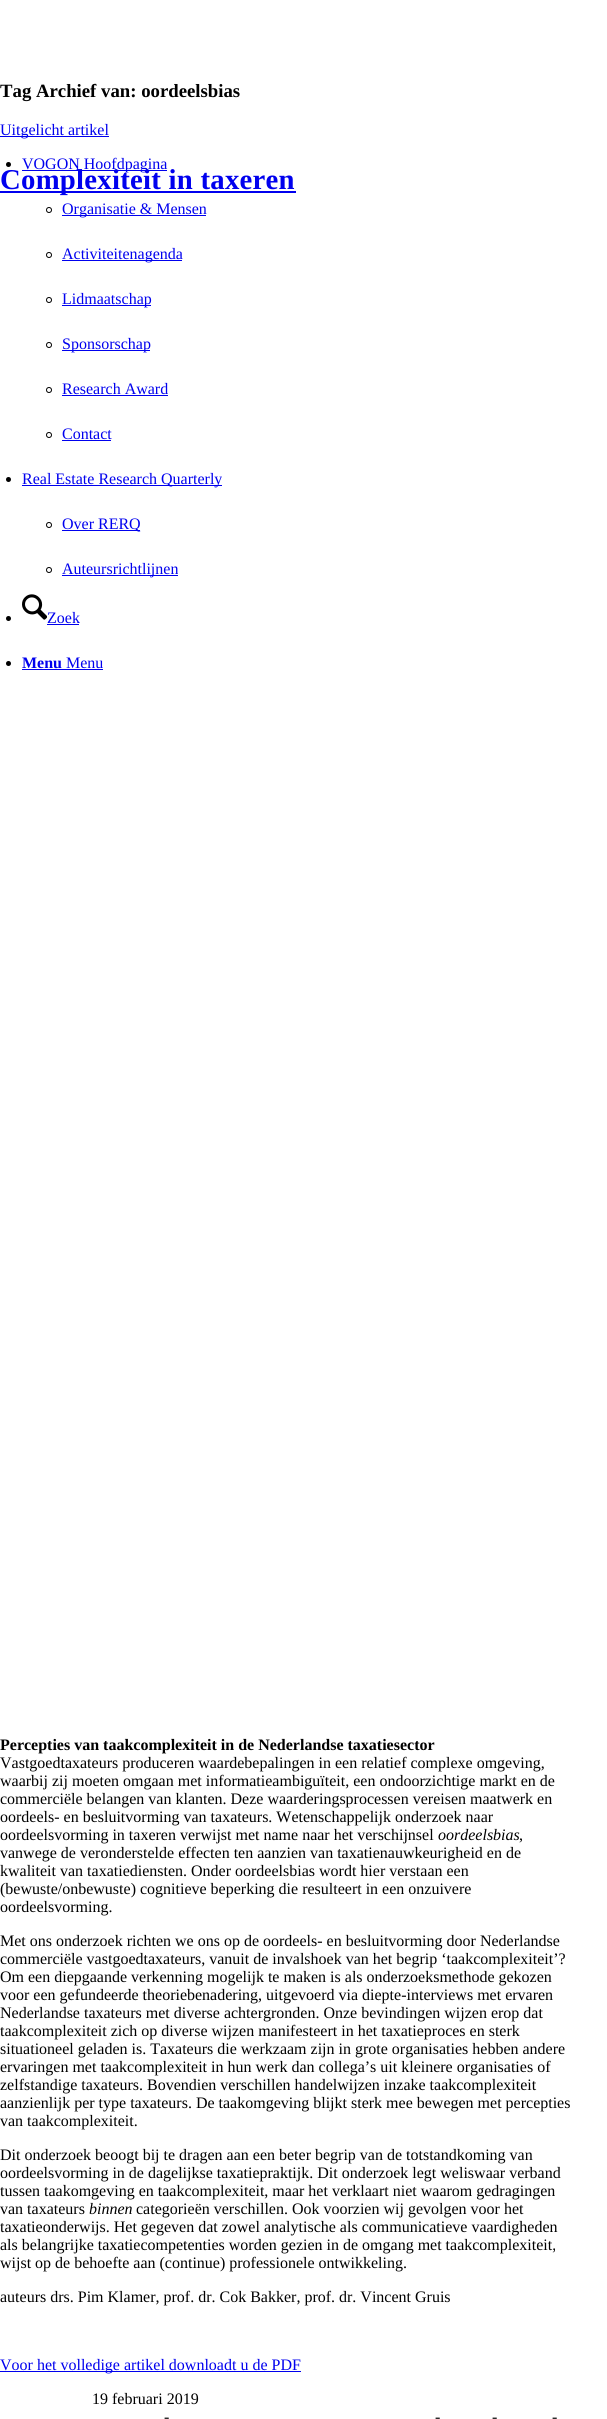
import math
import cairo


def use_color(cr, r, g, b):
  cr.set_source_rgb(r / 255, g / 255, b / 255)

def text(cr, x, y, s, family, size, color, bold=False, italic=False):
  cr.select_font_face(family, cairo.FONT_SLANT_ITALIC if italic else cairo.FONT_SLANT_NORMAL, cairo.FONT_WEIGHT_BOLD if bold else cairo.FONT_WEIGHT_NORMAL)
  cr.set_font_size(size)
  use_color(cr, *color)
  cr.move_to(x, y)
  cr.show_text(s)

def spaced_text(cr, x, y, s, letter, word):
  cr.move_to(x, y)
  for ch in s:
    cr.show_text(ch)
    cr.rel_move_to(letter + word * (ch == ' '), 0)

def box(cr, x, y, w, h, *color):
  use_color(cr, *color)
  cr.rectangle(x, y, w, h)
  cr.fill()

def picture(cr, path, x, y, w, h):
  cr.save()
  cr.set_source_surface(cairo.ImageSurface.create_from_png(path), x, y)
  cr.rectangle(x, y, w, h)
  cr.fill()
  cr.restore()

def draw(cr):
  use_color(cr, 255, 255, 255)
  cr.paint()
  box(cr, 0, 136, 109, 1, 0, 0, 238)
  box(cr, 0, 191, 296, 2, 0, 0, 238)
  box(cr, 0, 2371, 301, 1, 0, 0, 238)
  use_color(cr, 0, 0, 0)
  cr.arc(8.5, 164.5, 2.5, 0, 2 * math.pi)
  cr.fill()
  box(cr, 22, 170, 145, 1, 0, 0, 238)
  cr.arc(49, 210, 2.5, 0, 2 * math.pi)
  use_color(cr, 0, 0, 0)
  cr.set_line_width(1)
  cr.stroke()
  box(cr, 62, 215, 144, 1, 0, 0, 238)
  cr.arc(49, 255, 2.5, 0, 2 * math.pi)
  use_color(cr, 0, 0, 0)
  cr.stroke()
  box(cr, 62, 260, 120, 1, 0, 0, 238)
  cr.arc(49, 300, 2.5, 0, 2 * math.pi)
  use_color(cr, 0, 0, 0)
  cr.stroke()
  box(cr, 62, 305, 89, 1, 0, 0, 238)
  cr.arc(49, 345, 2.5, 0, 2 * math.pi)
  use_color(cr, 0, 0, 0)
  cr.stroke()
  box(cr, 62, 350, 88, 1, 0, 0, 238)
  cr.arc(49, 390, 2.5, 0, 2 * math.pi)
  use_color(cr, 0, 0, 0)
  cr.stroke()
  box(cr, 62, 395, 106, 1, 0, 0, 238)
  cr.arc(49, 435, 2.5, 0, 2 * math.pi)
  use_color(cr, 0, 0, 0)
  cr.stroke()
  box(cr, 62, 440, 49, 1, 0, 0, 238)
  use_color(cr, 0, 0, 0)
  cr.arc(8.5, 479.5, 2.5, 0, 2 * math.pi)
  cr.fill()
  box(cr, 22, 485, 200, 1, 0, 0, 238)
  cr.arc(49, 525, 2.5, 0, 2 * math.pi)
  use_color(cr, 0, 0, 0)
  cr.stroke()
  box(cr, 62, 530, 78, 1, 0, 0, 238)
  cr.arc(49, 570, 2.5, 0, 2 * math.pi)
  use_color(cr, 0, 0, 0)
  cr.stroke()
  box(cr, 62, 575, 116, 1, 0, 0, 238)
  use_color(cr, 0, 0, 0)
  cr.arc(8.5, 618.5, 2.5, 0, 2 * math.pi)
  cr.fill()
  picture(cr, "img_01.png", 22, 594, 25, 26)
  box(cr, 47, 624, 32, 1, 0, 0, 238)
  use_color(cr, 0, 0, 0)
  cr.arc(8.5, 663.5, 2.5, 0, 2 * math.pi)
  cr.fill()
  box(cr, 22, 669, 81, 1, 0, 0, 238)
  text(cr, 0, 97, "Tag Archief van: oordeelsbias", "Liberation Serif", 18.75, (0, 0, 0), bold=True)
  text(cr, 0, 135, "Uitgelicht artikel", "Liberation Serif", 16, (0, 0, 238))
  cr.select_font_face("Liberation Serif", cairo.FONT_SLANT_NORMAL, cairo.FONT_WEIGHT_BOLD)
  cr.set_font_size(28.75)
  spaced_text(cr, 0, 189, "Complexiteit in taxeren", 0.25, 0)
  text(cr, 0, 1750, "Percepties van taakcomplexiteit in de Nederlandse taxatiesector", "Liberation Serif", 16, (0, 0, 0), bold=True)
  text(cr, 0, 1768, "Vastgoedtaxateurs produceren waardebepalingen in een relatief complexe omgeving,", "Liberation Serif", 16, (0, 0, 0))
  text(cr, 0, 1786, "waarbij zij moeten omgaan met informatieambiguïteit, een ondoorzichtige markt en de", "Liberation Serif", 16, (0, 0, 0))
  text(cr, 0, 1804, "commerciële belangen van klanten. Deze waarderingsprocessen vereisen maatwerk en", "Liberation Serif", 16, (0, 0, 0))
  text(cr, 0, 1822, "oordeels- en besluitvorming van taxateurs. Wetenschappelijk onderzoek naar", "Liberation Serif", 16, (0, 0, 0))
  text(cr, 0, 1840, "oordeelsvorming in taxeren verwijst met name naar het verschijnsel", "Liberation Serif", 16, (0, 0, 0))
  text(cr, 438, 1840, "oordeelsbias", "Liberation Serif", 16, (0, 0, 0), italic=True)
  text(cr, 519, 1840, ",", "Liberation Serif", 16, (0, 0, 0))
  text(cr, 0, 1858, "vanwege de veronderstelde effecten ten aanzien van taxatienauwkeurigheid en de", "Liberation Serif", 16, (0, 0, 0))
  text(cr, 0, 1876, "kwaliteit van taxatiediensten. Onder oordeelsbias wordt hier verstaan een", "Liberation Serif", 16, (0, 0, 0))
  text(cr, 0, 1894, "(bewuste/onbewuste) cognitieve beperking die resulteert in een onzuivere", "Liberation Serif", 16, (0, 0, 0))
  text(cr, 0, 1912, "oordeelsvorming.", "Liberation Serif", 16, (0, 0, 0))
  text(cr, 0, 1946, "Met ons onderzoek richten we ons op de oordeels- en besluitvorming door Nederlandse", "Liberation Serif", 16, (0, 0, 0))
  text(cr, 0, 1964, "commerciële vastgoedtaxateurs, vanuit de invalshoek van het begrip ‘taakcomplexiteit’?", "Liberation Serif", 16, (0, 0, 0))
  text(cr, 0, 1982, "Om een diepgaande verkenning mogelijk te maken is als onderzoeksmethode gekozen", "Liberation Serif", 16, (0, 0, 0))
  text(cr, 0, 2000, "voor een gefundeerde theoriebenadering, uitgevoerd via diepte-interviews met ervaren", "Liberation Serif", 16, (0, 0, 0))
  text(cr, 0, 2018, "Nederlandse taxateurs met diverse achtergronden. Onze bevindingen wijzen erop dat", "Liberation Serif", 16, (0, 0, 0))
  text(cr, 0, 2036, "taakcomplexiteit zich op diverse wijzen manifesteert in het taxatieproces en sterk", "Liberation Serif", 16, (0, 0, 0))
  text(cr, 0, 2054, "situationeel geladen is. Taxateurs die werkzaam zijn in grote organisaties hebben andere", "Liberation Serif", 16, (0, 0, 0))
  text(cr, 0, 2072, "ervaringen met taakcomplexiteit in hun werk dan collega’s uit kleinere organisaties of", "Liberation Serif", 16, (0, 0, 0))
  text(cr, 0, 2090, "zelfstandige taxateurs. Bovendien verschillen handelwijzen inzake taakcomplexiteit", "Liberation Serif", 16, (0, 0, 0))
  text(cr, 0, 2108, "aanzienlijk per type taxateurs. De taakomgeving blijkt sterk mee bewegen met percepties", "Liberation Serif", 16, (0, 0, 0))
  text(cr, 0, 2126, "van taakcomplexiteit.", "Liberation Serif", 16, (0, 0, 0))
  text(cr, 0, 2160, "Dit onderzoek beoogt bij te dragen aan een beter begrip van de totstandkoming van", "Liberation Serif", 16, (0, 0, 0))
  text(cr, 0, 2178, "oordeelsvorming in de dagelijkse taxatiepraktijk. Dit onderzoek legt weliswaar verband", "Liberation Serif", 16, (0, 0, 0))
  text(cr, 0, 2196, "tussen taakomgeving en taakcomplexiteit, maar het verklaart niet waarom gedragingen", "Liberation Serif", 16, (0, 0, 0))
  text(cr, 0, 2214, "van taxateurs", "Liberation Serif", 16, (0, 0, 0))
  text(cr, 89, 2214, "binnen", "Liberation Serif", 16, (0, 0, 0), italic=True)
  text(cr, 136, 2214, "categorieën verschillen. Ook voorzien wij gevolgen voor het", "Liberation Serif", 16, (0, 0, 0))
  text(cr, 0, 2232, "taxatieonderwijs. Het gegeven dat zowel analytische als communicatieve vaardigheden", "Liberation Serif", 16, (0, 0, 0))
  text(cr, 0, 2250, "als belangrijke taxatiecompetenties worden gezien in de omgang met taakcomplexiteit,", "Liberation Serif", 16, (0, 0, 0))
  text(cr, 0, 2268, "wijst op de behoefte aan (continue) professionele ontwikkeling.", "Liberation Serif", 16, (0, 0, 0))
  text(cr, 0, 2302, "auteurs drs. Pim Klamer, prof. dr. Cok Bakker, prof. dr. Vincent Gruis", "Liberation Serif", 16, (0, 0, 0))
  text(cr, 0, 2370, "Voor het volledige artikel downloadt u de PDF", "Liberation Serif", 16, (0, 0, 238))
  text(cr, 92, 2404, "19 februari 2019", "Liberation Serif", 16, (0, 0, 0))
  text(cr, 164, 2422, "-", "Liberation Serif", 16, (0, 0, 0))
  text(cr, 435, 2422, "-", "Liberation Serif", 16, (0, 0, 0))
  text(cr, 492, 2422, "-", "Liberation Serif", 16, (0, 0, 0))
  text(cr, 552, 2422, "-", "Liberation Serif", 16, (0, 0, 0))
  text(cr, 22, 169, "VOGON Hoofdpagina", "Liberation Serif", 16, (0, 0, 238))
  text(cr, 62, 214, "Organisatie & Mensen", "Liberation Serif", 16, (0, 0, 238))
  text(cr, 62, 259, "Activiteitenagenda", "Liberation Serif", 16, (0, 0, 238))
  text(cr, 62, 304, "Lidmaatschap", "Liberation Serif", 16, (0, 0, 238))
  text(cr, 62, 349, "Sponsorschap", "Liberation Serif", 16, (0, 0, 238))
  text(cr, 62, 394, "Research Award", "Liberation Serif", 16, (0, 0, 238))
  text(cr, 62, 439, "Contact", "Liberation Serif", 16, (0, 0, 238))
  text(cr, 22, 484, "Real Estate Research Quarterly", "Liberation Serif", 16, (0, 0, 238))
  text(cr, 62, 529, "Over RERQ", "Liberation Serif", 16, (0, 0, 238))
  text(cr, 62, 574, "Auteursrichtlijnen", "Liberation Serif", 16, (0, 0, 238))
  text(cr, 47, 623, "Zoek", "Liberation Serif", 16, (0, 0, 238))
  text(cr, 22, 668, "Menu", "Liberation Serif", 16, (0, 0, 238), bold=True)
  text(cr, 66, 668, "Menu", "Liberation Serif", 16, (0, 0, 238))


surface = cairo.ImageSurface(cairo.FORMAT_RGB24, 607, 2419)
cr = cairo.Context(surface)
options = cairo.FontOptions()
options.set_hint_metrics(cairo.HINT_METRICS_OFF)
options.set_hint_style(cairo.HINT_STYLE_NONE)
cr.set_font_options(options)
cr.set_miter_limit(4)
draw(cr)
surface.write_to_png("out.png")
